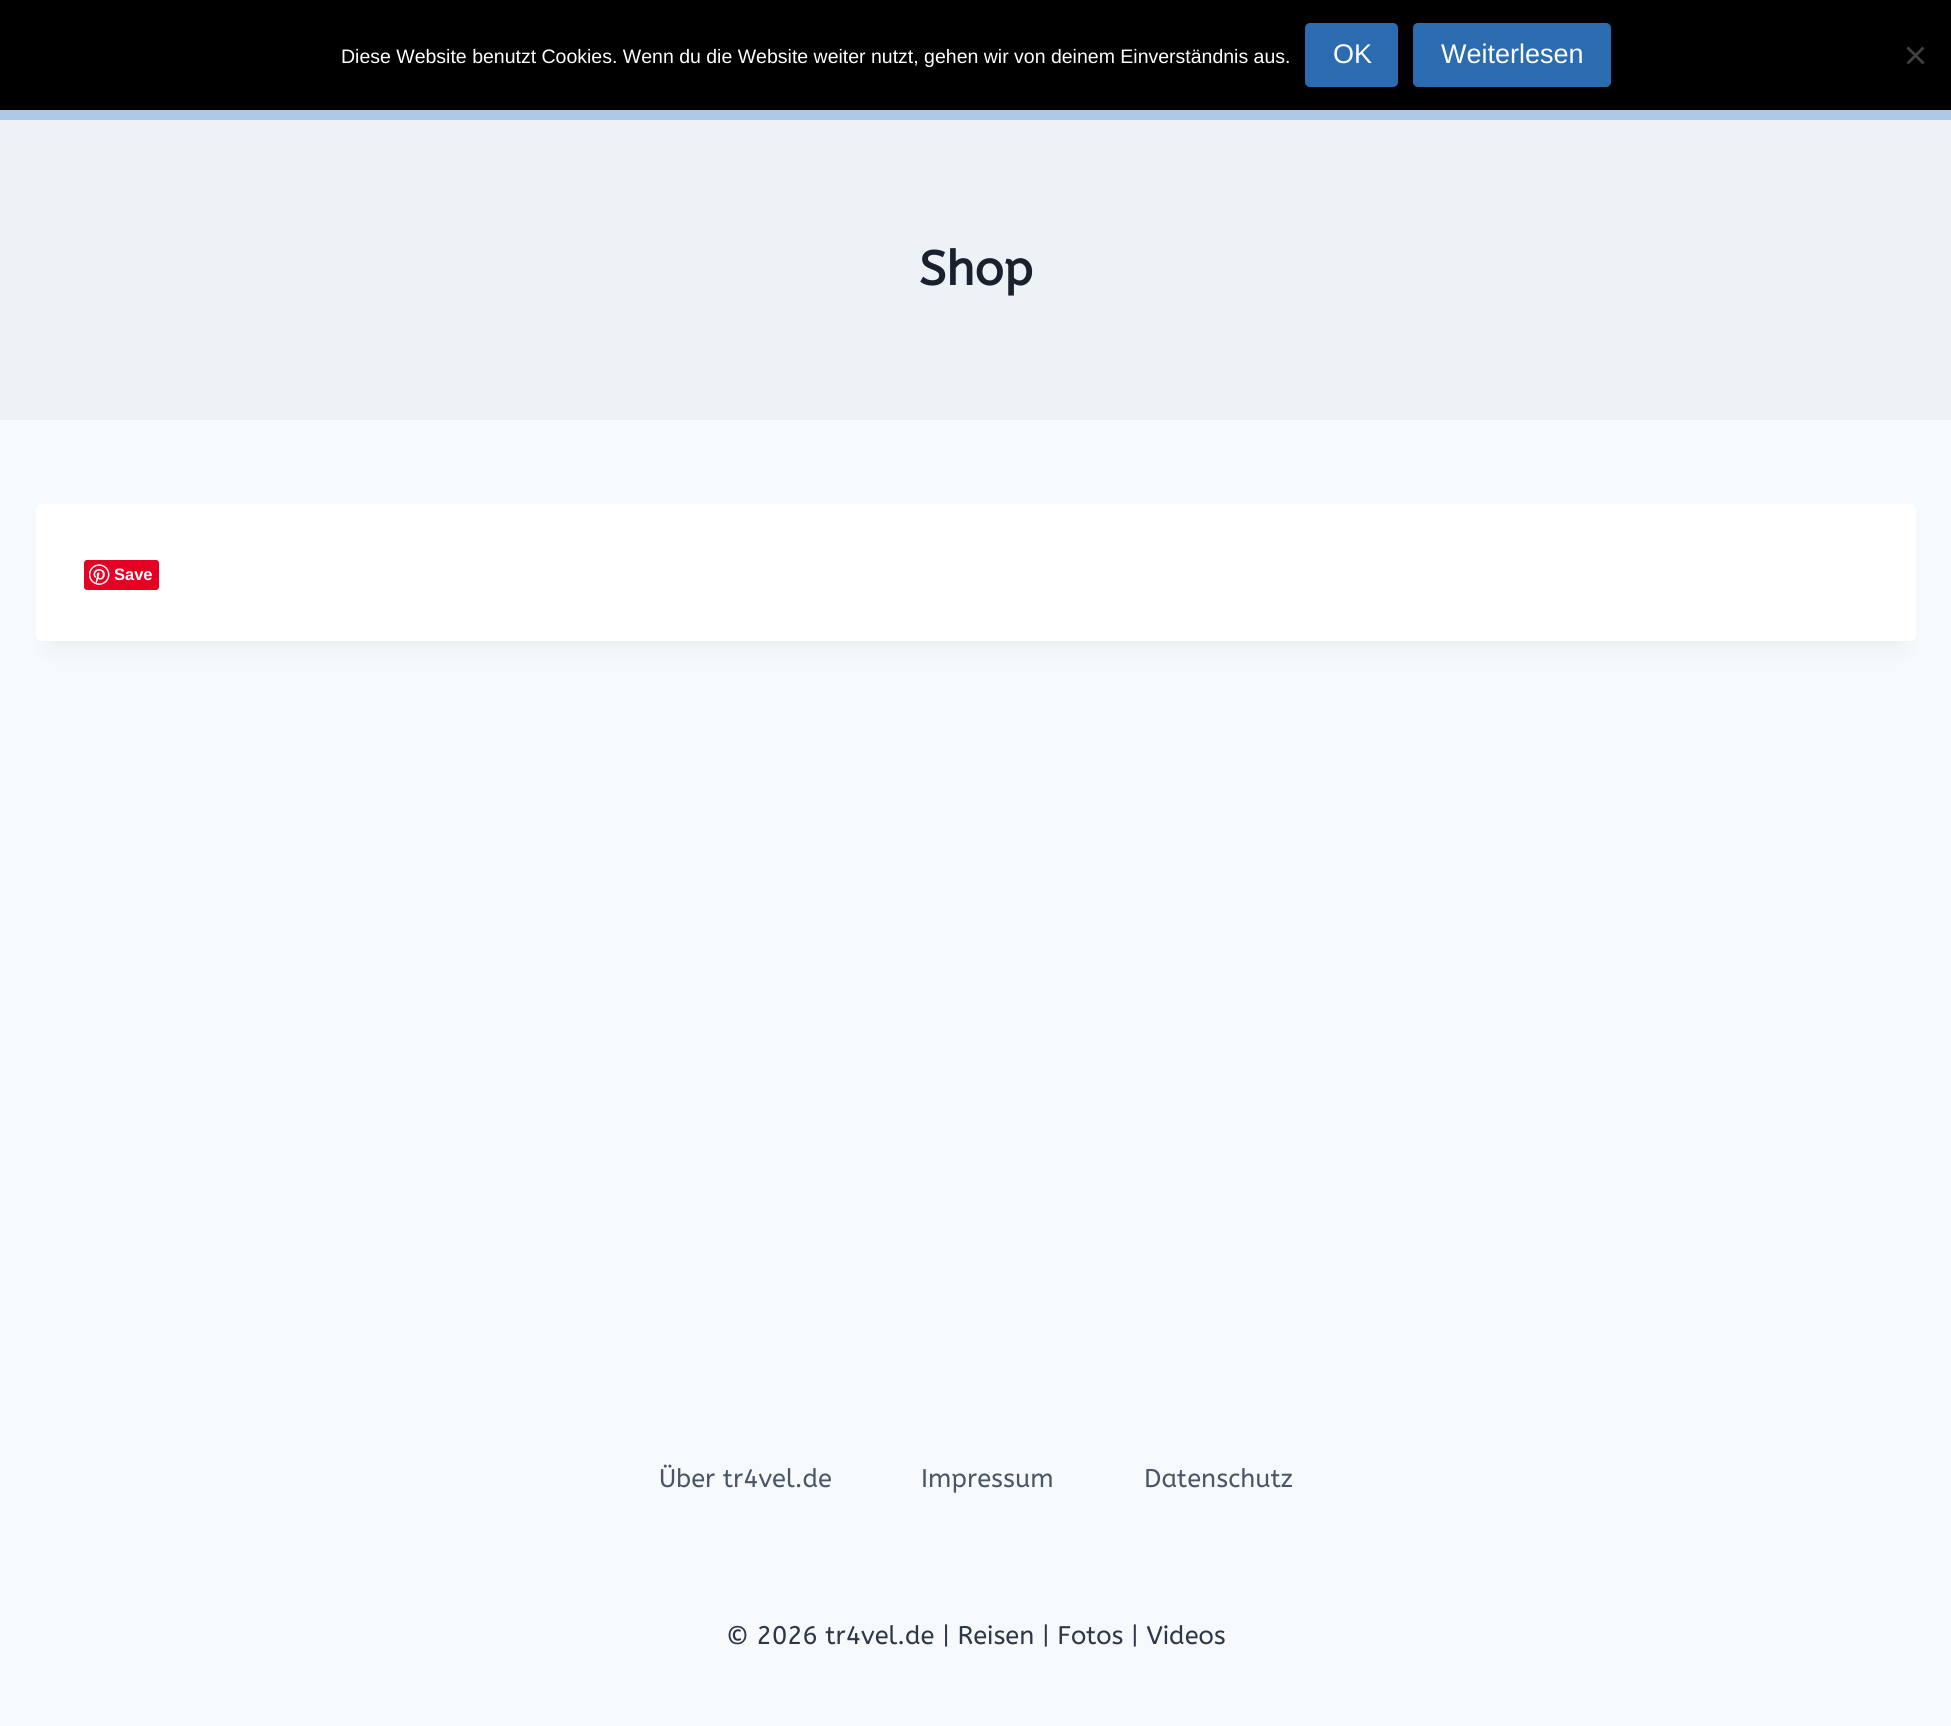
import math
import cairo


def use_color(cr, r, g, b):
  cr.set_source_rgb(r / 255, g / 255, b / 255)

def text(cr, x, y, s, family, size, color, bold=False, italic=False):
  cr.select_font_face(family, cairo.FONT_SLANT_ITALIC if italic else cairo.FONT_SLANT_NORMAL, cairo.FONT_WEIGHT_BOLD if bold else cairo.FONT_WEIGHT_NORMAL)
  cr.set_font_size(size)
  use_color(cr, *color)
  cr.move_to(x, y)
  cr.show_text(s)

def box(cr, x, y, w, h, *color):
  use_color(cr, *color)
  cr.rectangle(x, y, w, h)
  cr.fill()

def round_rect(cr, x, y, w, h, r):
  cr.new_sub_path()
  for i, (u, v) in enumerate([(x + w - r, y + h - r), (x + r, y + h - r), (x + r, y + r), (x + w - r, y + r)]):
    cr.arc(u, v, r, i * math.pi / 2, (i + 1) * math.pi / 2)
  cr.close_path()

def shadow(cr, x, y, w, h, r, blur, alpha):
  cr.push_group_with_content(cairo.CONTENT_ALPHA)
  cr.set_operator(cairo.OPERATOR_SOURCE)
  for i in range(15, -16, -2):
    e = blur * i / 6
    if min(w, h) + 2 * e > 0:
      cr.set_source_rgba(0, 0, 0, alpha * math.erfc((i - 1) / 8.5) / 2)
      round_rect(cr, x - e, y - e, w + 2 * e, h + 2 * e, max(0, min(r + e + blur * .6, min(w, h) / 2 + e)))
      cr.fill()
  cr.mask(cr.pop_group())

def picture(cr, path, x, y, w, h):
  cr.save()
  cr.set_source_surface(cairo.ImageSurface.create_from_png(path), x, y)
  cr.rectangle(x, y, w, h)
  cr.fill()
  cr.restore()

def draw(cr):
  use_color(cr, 247, 250, 252)
  cr.paint()
  box(cr, 0, 0, 1951, 110, 0, 0, 0)
  use_color(cr, 43, 108, 176)
  round_rect(cr, 1305, 23, 93, 64, 5)
  cr.fill()
  round_rect(cr, 1413, 23, 198, 64, 5)
  cr.fill()
  use_color(cr, 64, 64, 64)
  cr.new_path()
  cr.move_to(1922.5, 46.5)
  cr.line_to(1924.5, 48.5)
  cr.line_to(1908.5, 64.5)
  cr.line_to(1906.5, 62.5)
  cr.close_path()
  cr.fill()
  cr.new_path()
  cr.move_to(1906.5, 48.5)
  cr.line_to(1908.5, 46.5)
  cr.line_to(1924.5, 62.5)
  cr.line_to(1922.5, 64.5)
  cr.close_path()
  cr.fill()
  box(cr, 0, 110, 1951, 10, 174, 199, 226)
  box(cr, 0, 120, 1951, 300, 237, 242, 247)
  use_color(cr, 0, 0, 0)
  shadow(cr, 51, 542, 1850, 106, 0, 11, 0.05)
  use_color(cr, 255, 255, 255)
  round_rect(cr, 36, 504, 1880, 137, 6)
  cr.fill()
  use_color(cr, 230, 0, 35)
  round_rect(cr, 84, 560, 75, 30, 3)
  cr.fill()
  picture(cr, "img_01.png", 89, 564, 21, 21)
  text(cr, 341, 63, "Diese Website benutzt Cookies. Wenn du die Website weiter nutzt, gehen wir von deinem Einverständnis aus.", "Liberation Sans", 19.5, (255, 255, 255))
  text(cr, 1333, 63, "OK", "Liberation Sans", 27, (255, 255, 255))
  text(cr, 1441, 63, "Weiterlesen", "Liberation Sans", 27, (255, 255, 255))
  text(cr, 919, 285, "Shop", "ABeeZee", 48, (26, 32, 44), bold=True)
  text(cr, 114, 580, "Save", "Liberation Sans", 16.5, (255, 255, 255), bold=True)
  text(cr, 659, 1487, "Über tr4vel.de", "ABeeZee", 25.5, (74, 85, 104))
  text(cr, 921, 1487, "Impressum", "ABeeZee", 25.5, (74, 85, 104))
  text(cr, 1144, 1487, "Datenschutz", "ABeeZee", 25.5, (74, 85, 104))
  text(cr, 726, 1644, "© 2026 tr4vel.de | Reisen | Fotos | Videos", "ABeeZee", 25.5, (45, 55, 72))


surface = cairo.ImageSurface(cairo.FORMAT_RGB24, 1951, 1726)
cr = cairo.Context(surface)
options = cairo.FontOptions()
options.set_hint_metrics(cairo.HINT_METRICS_OFF)
options.set_hint_style(cairo.HINT_STYLE_NONE)
cr.set_font_options(options)
cr.set_miter_limit(4)
draw(cr)
surface.write_to_png("out.png")
